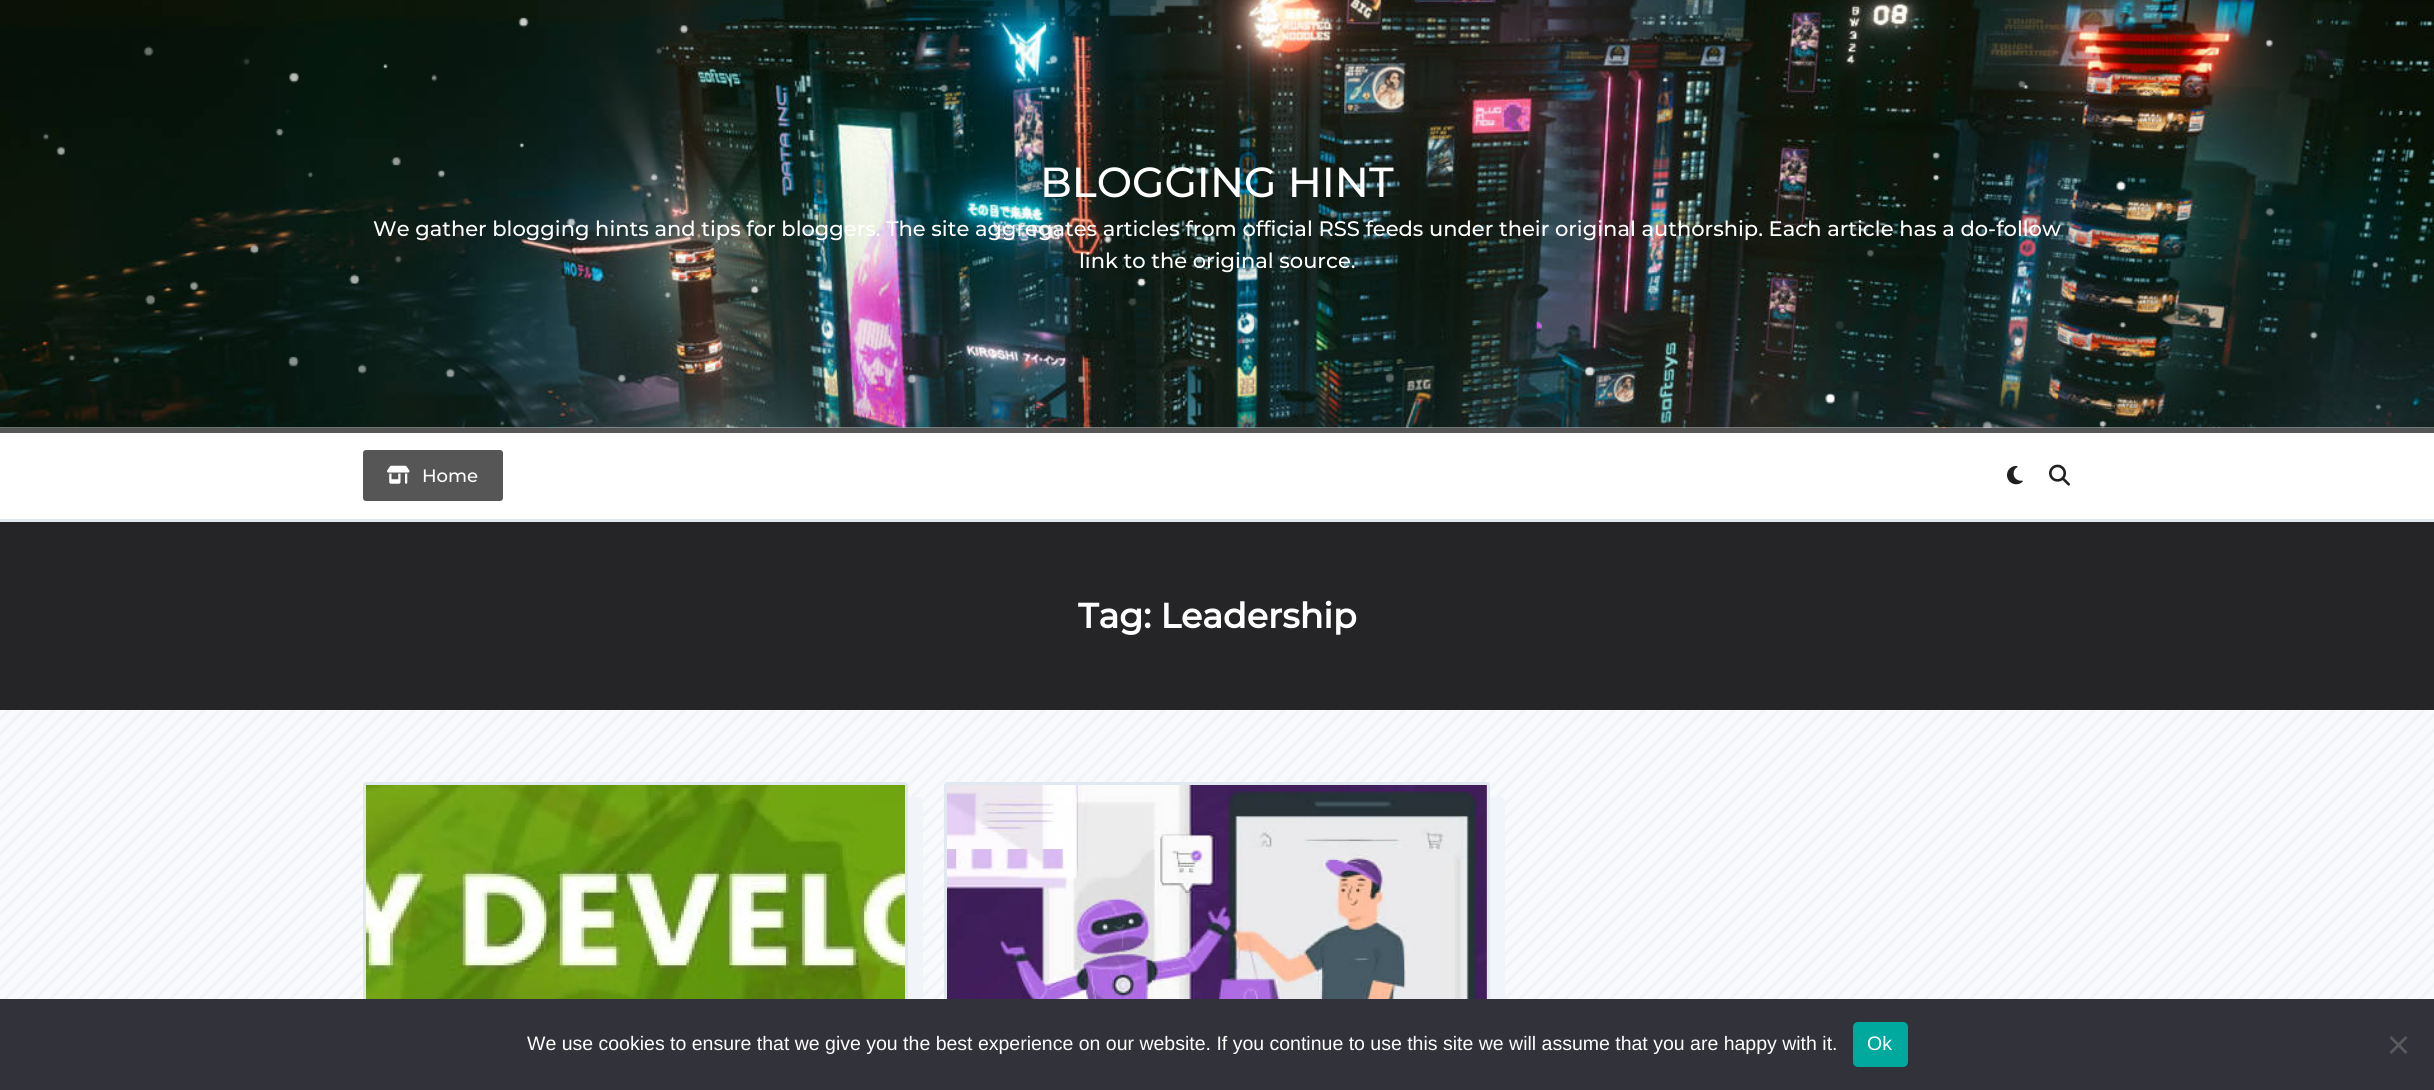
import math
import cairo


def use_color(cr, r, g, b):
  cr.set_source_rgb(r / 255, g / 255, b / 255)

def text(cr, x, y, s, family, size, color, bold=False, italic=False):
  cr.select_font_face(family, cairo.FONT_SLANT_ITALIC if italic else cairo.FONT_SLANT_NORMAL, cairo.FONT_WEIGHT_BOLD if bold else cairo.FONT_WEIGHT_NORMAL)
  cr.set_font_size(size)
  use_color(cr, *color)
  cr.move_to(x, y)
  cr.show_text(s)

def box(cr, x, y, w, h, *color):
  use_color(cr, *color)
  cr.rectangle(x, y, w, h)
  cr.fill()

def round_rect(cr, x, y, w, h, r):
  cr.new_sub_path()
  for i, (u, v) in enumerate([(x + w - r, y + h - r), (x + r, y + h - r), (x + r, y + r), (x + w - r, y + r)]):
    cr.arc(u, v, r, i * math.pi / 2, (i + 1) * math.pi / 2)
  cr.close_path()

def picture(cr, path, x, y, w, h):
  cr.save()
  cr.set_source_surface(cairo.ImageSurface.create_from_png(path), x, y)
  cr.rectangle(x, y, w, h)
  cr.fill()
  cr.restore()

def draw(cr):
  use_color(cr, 248, 250, 252)
  cr.paint()
  picture(cr, "img_01.png", 0, 710, 2434, 289)
  box(cr, 0, 427, 2434, 1, 204, 204, 204)
  picture(cr, "img_02.png", 0, 0, 2434, 428)
  box(cr, 0, 433, 2434, 86, 255, 255, 255)
  box(cr, 0, 428, 2434, 5, 86, 86, 86)
  box(cr, 0, 519, 2434, 3, 226, 232, 240)
  use_color(cr, 86, 86, 86)
  round_rect(cr, 364, 451, 138, 49, 2)
  cr.fill_preserve()
  cr.stroke()
  picture(cr, "img_04.png", 387, 465, 23, 19)
  picture(cr, "img_05.png", 2007, 465, 16, 20)
  picture(cr, "img_06.png", 2049, 464, 21, 22)
  box(cr, 0, 522, 2434, 188, 37, 37, 40)
  use_color(cr, 241, 245, 249)
  cr.new_path()
  cr.move_to(378, 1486)
  cr.line_to(378, 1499)
  cr.curve_to(378, 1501, 379, 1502, 381, 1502)
  cr.line_to(920, 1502)
  cr.curve_to(922, 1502, 923, 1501, 923, 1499)
  cr.line_to(923, 800)
  cr.curve_to(923, 798, 922, 797, 920, 797)
  cr.line_to(908, 797)
  cr.line_to(908, 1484)
  cr.curve_to(908, 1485, 906, 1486, 904, 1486)
  cr.close_path()
  cr.fill()
  round_rect(cr, 364.5, 783.5, 542, 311, 1.5)
  use_color(cr, 226, 232, 240)
  cr.set_line_width(3)
  cr.stroke()
  picture(cr, "img_07.png", 366, 785, 539, 214)
  use_color(cr, 241, 245, 249)
  cr.new_path()
  cr.move_to(959, 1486)
  cr.line_to(959, 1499)
  cr.curve_to(959, 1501, 960, 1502, 962, 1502)
  cr.line_to(1502, 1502)
  cr.curve_to(1504, 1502, 1505, 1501, 1505, 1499)
  cr.line_to(1505, 800)
  cr.curve_to(1505, 798, 1504, 797, 1502, 797)
  cr.line_to(1490, 797)
  cr.line_to(1490, 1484)
  cr.curve_to(1490, 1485, 1488, 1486, 1486, 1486)
  cr.close_path()
  cr.fill()
  round_rect(cr, 945.5, 783.5, 543, 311, 1.5)
  use_color(cr, 226, 232, 240)
  cr.stroke()
  picture(cr, "img_08.png", 947, 785, 540, 214)
  box(cr, 0, 999, 2434, 91, 50, 50, 58)
  use_color(cr, 0, 169, 157)
  round_rect(cr, 1853, 1022, 55, 45, 5)
  cr.fill()
  use_color(cr, 89, 89, 93)
  cr.new_path()
  cr.move_to(2405.5, 1036)
  cr.line_to(2407.5, 1038)
  cr.line_to(2391.5, 1054)
  cr.line_to(2389.5, 1052)
  cr.close_path()
  cr.fill()
  cr.new_path()
  cr.move_to(2389.5, 1038)
  cr.line_to(2391.5, 1036)
  cr.line_to(2407.5, 1052)
  cr.line_to(2405.5, 1054)
  cr.close_path()
  cr.fill()
  text(cr, 1040, 197, "BLOGGING HINT", "Montserrat Thin", 42, (255, 255, 255))
  text(cr, 373, 236, "We gather blogging hints and tips for bloggers. The site aggregates articles from official RSS feeds under their original authorship. Each article has a do-follow", "Montserrat Thin", 21, (255, 255, 255))
  text(cr, 1079, 268, "link to the original source.", "Montserrat Thin", 21, (255, 255, 255))
  picture(cr, "img_03.png", 43, 17, 2339, 411)
  text(cr, 422, 482, "Home", "Montserrat Thin", 18, (255, 255, 255))
  text(cr, 1078, 628, "Tag: Leadership", "Montserrat", 34.75, (255, 255, 255), bold=True)
  text(cr, 527, 1050, "We use cookies to ensure that we give you the best experience on our website. If you continue to use this site we will assume that you are happy with it.", "Liberation Sans", 19.5, (255, 255, 255))
  text(cr, 1867, 1050, "Ok", "Liberation Sans", 19.5, (255, 255, 255))


surface = cairo.ImageSurface(cairo.FORMAT_RGB24, 2434, 1090)
cr = cairo.Context(surface)
options = cairo.FontOptions()
options.set_hint_metrics(cairo.HINT_METRICS_OFF)
options.set_hint_style(cairo.HINT_STYLE_NONE)
cr.set_font_options(options)
cr.set_miter_limit(4)
draw(cr)
surface.write_to_png("out.png")
